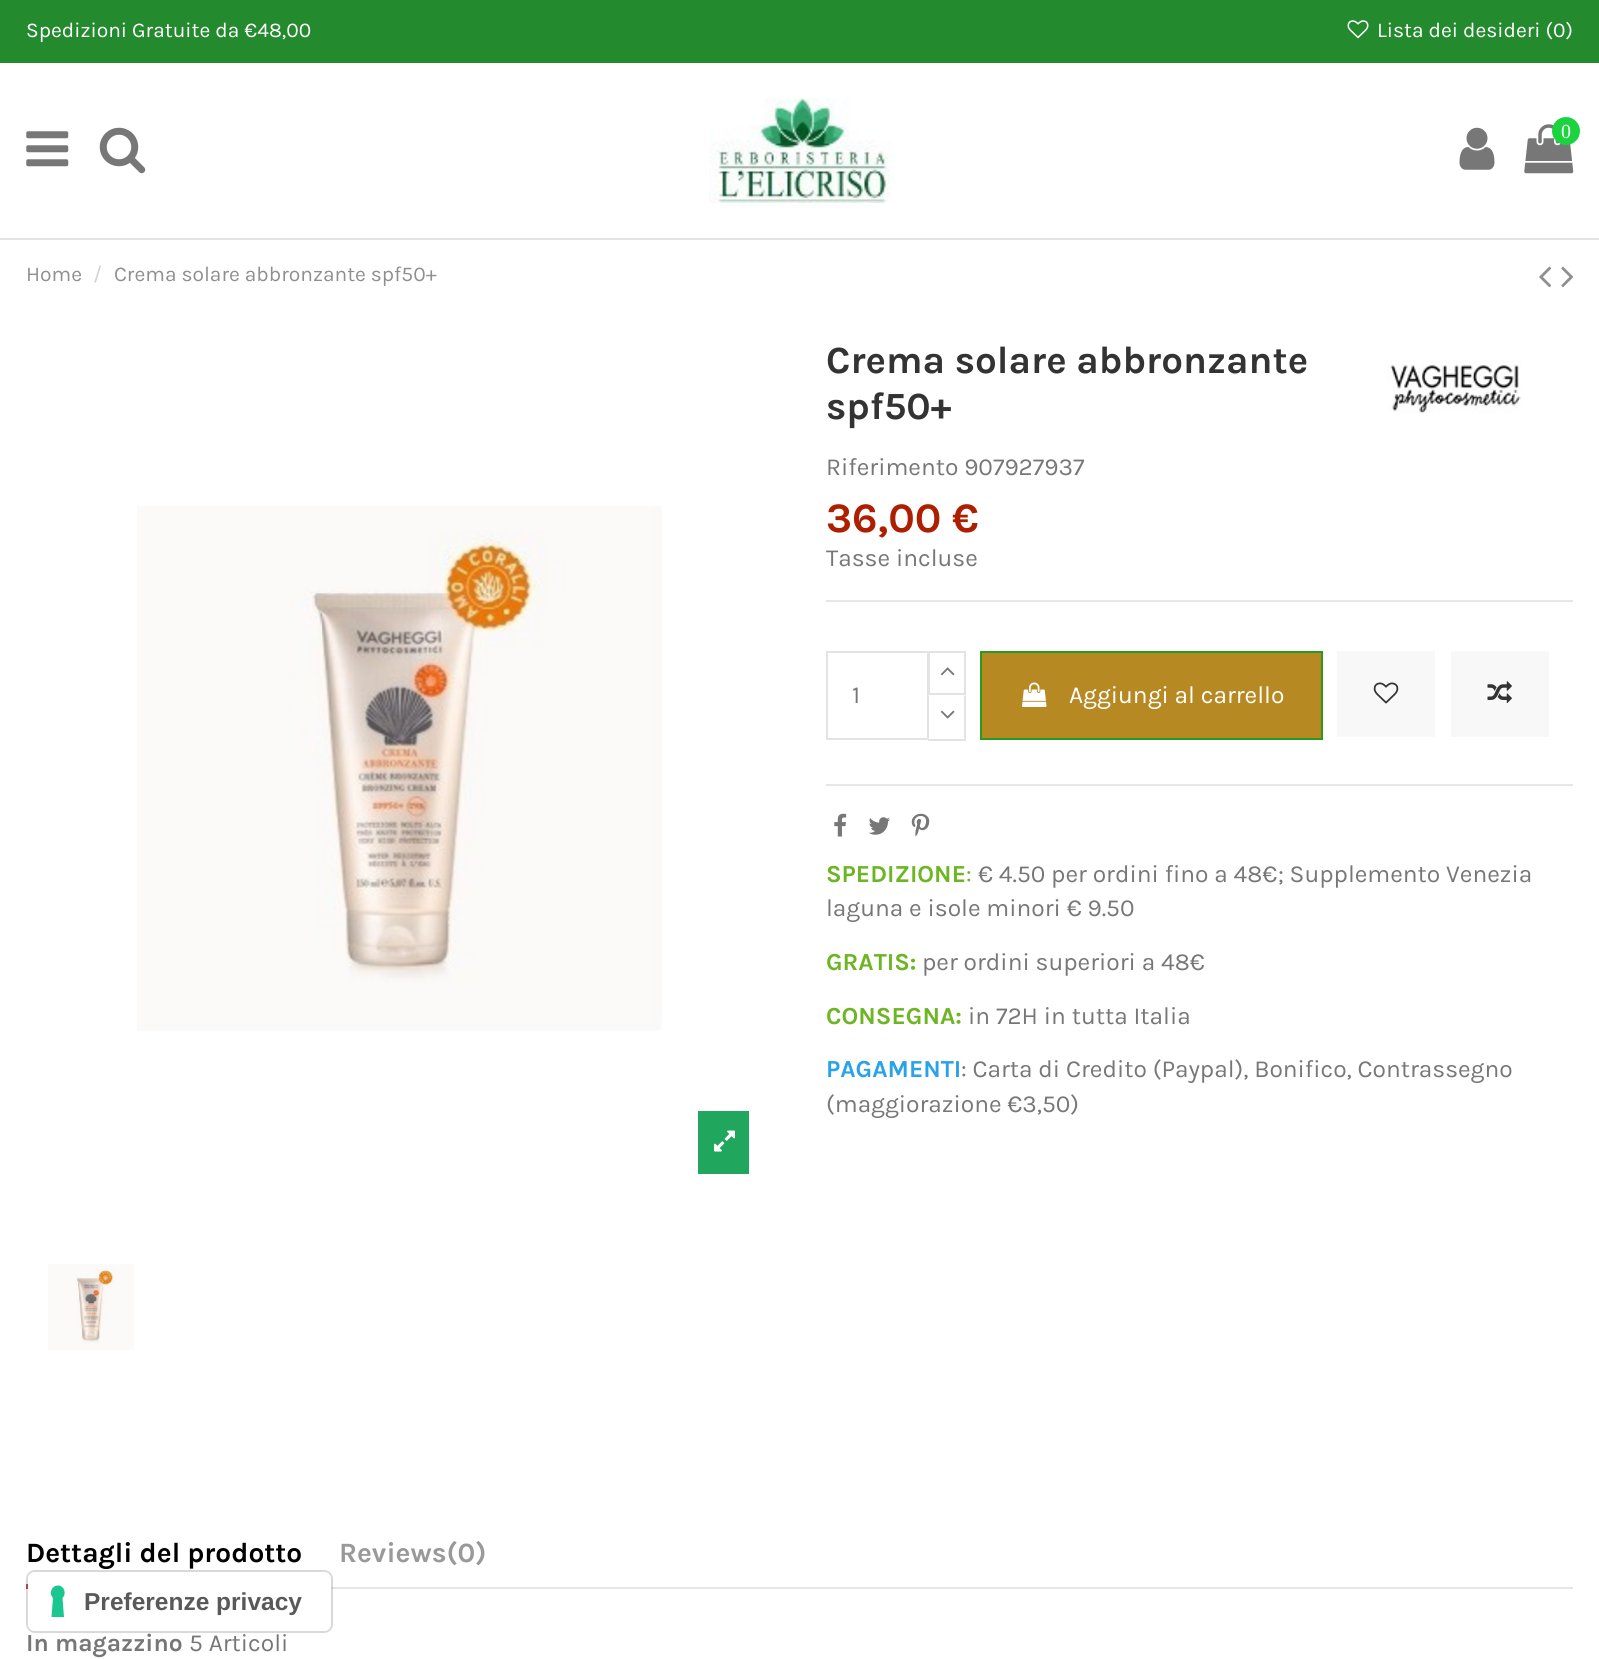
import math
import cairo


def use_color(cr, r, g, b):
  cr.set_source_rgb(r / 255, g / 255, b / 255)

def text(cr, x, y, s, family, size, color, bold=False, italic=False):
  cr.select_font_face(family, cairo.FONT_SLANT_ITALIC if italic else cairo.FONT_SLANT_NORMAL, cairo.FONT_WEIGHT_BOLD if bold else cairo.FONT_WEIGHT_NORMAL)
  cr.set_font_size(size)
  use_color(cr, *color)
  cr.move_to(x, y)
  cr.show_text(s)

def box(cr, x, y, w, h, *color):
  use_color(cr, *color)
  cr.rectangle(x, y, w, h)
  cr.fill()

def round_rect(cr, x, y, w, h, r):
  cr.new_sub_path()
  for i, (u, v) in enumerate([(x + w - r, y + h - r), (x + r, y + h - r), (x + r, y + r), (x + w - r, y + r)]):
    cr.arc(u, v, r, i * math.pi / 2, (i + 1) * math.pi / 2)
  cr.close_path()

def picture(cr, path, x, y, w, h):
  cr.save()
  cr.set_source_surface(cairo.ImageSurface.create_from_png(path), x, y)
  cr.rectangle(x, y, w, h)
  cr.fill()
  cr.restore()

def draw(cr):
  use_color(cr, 255, 255, 255)
  cr.paint()
  box(cr, 0, 0, 1599, 63, 36, 138, 46)
  picture(cr, "img_01.png", 1347, 20, 22, 19)
  box(cr, 0, 238, 1599, 2, 227, 227, 227)
  picture(cr, "img_02.png", 26, 131, 43, 36)
  picture(cr, "img_03.png", 99, 127, 47, 47)
  picture(cr, "img_04.png", 709, 98, 185, 105)
  picture(cr, "img_05.png", 1459, 127, 36, 43)
  picture(cr, "img_06.png", 1524, 124, 50, 50)
  use_color(cr, 27, 211, 63)
  cr.arc(1566, 131, 14, 0, 2 * math.pi)
  cr.fill()
  picture(cr, "img_07.png", 1539, 266, 12, 22)
  picture(cr, "img_08.png", 1561, 266, 13, 22)
  picture(cr, "img_09.png", 137, 506, 525, 525)
  box(cr, 698, 1111, 51, 63, 32, 166, 93)
  picture(cr, "img_10.png", 714, 1130, 21, 22)
  picture(cr, "img_11.png", 48, 1264, 86, 86)
  box(cr, 826, 600, 747, 2, 231, 231, 231)
  picture(cr, "img_12.png", 1387, 360, 134, 53)
  cr.rectangle(827, 652, 101, 87)
  use_color(cr, 227, 227, 227)
  cr.stroke()
  cr.rectangle(929, 652, 36, 42)
  cr.stroke()
  picture(cr, "img_13.png", 940, 667, 15, 9)
  box(cr, 928, 695, 1, 44, 255, 255, 255)
  use_color(cr, 227, 227, 227)
  cr.new_path()
  cr.move_to(966, 695)
  cr.line_to(966, 740)
  cr.line_to(964, 738)
  cr.line_to(964, 696)
  cr.close_path()
  cr.fill()
  box(cr, 928, 739, 38, 2, 227, 227, 227)
  cr.new_path()
  cr.move_to(928, 740)
  cr.line_to(928, 695)
  cr.line_to(929, 696)
  cr.line_to(929, 738)
  cr.close_path()
  cr.fill()
  picture(cr, "img_14.png", 940, 710, 15, 9)
  use_color(cr, 182, 137, 35)
  cr.rectangle(981, 652, 341, 87)
  cr.fill_preserve()
  use_color(cr, 43, 152, 30)
  cr.stroke()
  picture(cr, "img_15.png", 1022, 682, 25, 25)
  box(cr, 1337, 651, 98, 86, 248, 248, 248)
  picture(cr, "img_16.png", 1373, 682, 26, 22)
  box(cr, 1451, 651, 98, 86, 248, 248, 248)
  picture(cr, "img_17.png", 1487, 681, 25, 22)
  box(cr, 826, 784, 747, 2, 231, 231, 231)
  picture(cr, "img_18.png", 834, 813, 13, 24)
  picture(cr, "img_19.png", 868, 817, 22, 18)
  picture(cr, "img_20.png", 911, 813, 19, 24)
  box(cr, 331, 1587, 1242, 2, 231, 231, 231)
  box(cr, 26, 1584, 2, 5, 202, 80, 88)
  round_rect(cr, 27, 1571, 305, 61, 8)
  cr.set_source_rgba(0, 0, 0, 0.15)
  cr.stroke()
  use_color(cr, 255, 255, 255)
  round_rect(cr, 28, 1572, 303, 59, 7)
  cr.fill()
  use_color(cr, 28, 198, 145)
  cr.set_fill_rule(cairo.FILL_RULE_EVEN_ODD)
  cr.new_path()
  cr.move_to(58, 1585.5)
  cr.curve_to(64, 1585.5, 67, 1593.5, 62.5, 1598)
  cr.line_to(64, 1617)
  cr.line_to(51.5, 1617)
  cr.line_to(53, 1598)
  cr.curve_to(48.5, 1593.5, 51.5, 1585.5, 58, 1585.5)
  cr.close_path()
  cr.fill()
  text(cr, 26, 37, "Spedizioni Gratuite da €48,00", "Karla", 21, (255, 255, 255))
  text(cr, 1377, 37, "Lista dei desideri (0)", "Karla", 21, (255, 255, 255))
  text(cr, 1561, 138, "0", "Liberation Serif", 20, (255, 255, 255))
  text(cr, 26, 281, "Home", "Karla", 21, (143, 143, 143))
  text(cr, 93, 281, "/", "Karla", 21, (210, 210, 210))
  text(cr, 114, 281, "Crema solare abbronzante spf50+", "Karla", 21, (143, 143, 143))
  text(cr, 826, 373, "Crema solare abbronzante", "Karla", 38.5, (51, 51, 51), bold=True)
  text(cr, 826, 419, "spf50+", "Karla", 38.5, (51, 51, 51), bold=True)
  text(cr, 826, 475, "Riferimento 907927937", "Karla", 24.5, (119, 119, 119))
  text(cr, 826, 532, "36,00 €", "Karla", 42, (173, 31, 0), bold=True)
  text(cr, 826, 566, "Tasse incluse", "Karla", 24.5, (119, 119, 119))
  text(cr, 852, 703, "1", "Karla", 24.5, (119, 119, 119))
  text(cr, 1069, 703, "Aggiungi al carrello", "Karla", 24.5, (255, 255, 255))
  text(cr, 826, 882, "SPEDIZIONE", "Karla", 24.5, (110, 181, 35), bold=True)
  text(cr, 966, 882, ":", "Karla", 24.5, (110, 181, 35))
  text(cr, 978, 882, "€ 4.50 per ordini fino a 48€; Supplemento Venezia", "Karla", 24.5, (119, 119, 119))
  text(cr, 826, 916, "laguna e isole minori € 9.50", "Karla", 24.5, (119, 119, 119))
  text(cr, 826, 970, "GRATIS:", "Karla", 24.5, (110, 181, 35), bold=True)
  text(cr, 922, 970, "per ordini superiori a 48€", "Karla", 24.5, (119, 119, 119))
  text(cr, 826, 1024, "CONSEGNA:", "Karla", 24.5, (110, 181, 35), bold=True)
  text(cr, 968, 1024, "in 72H in tutta Italia", "Karla", 24.5, (119, 119, 119))
  text(cr, 826, 1077, "PAGAMENTI", "Karla", 24.5, (41, 162, 233), bold=True)
  text(cr, 961, 1077, ": Carta di Credito (Paypal), Bonifico, Contrassegno", "Karla", 24.5, (119, 119, 119))
  text(cr, 826, 1112, "(maggiorazione €3,50)", "Karla", 24.5, (119, 119, 119))
  text(cr, 26, 1562, "Dettagli del prodotto", "Karla", 28, (0, 0, 0), bold=True)
  text(cr, 339, 1562, "Reviews(0)", "Karla", 28, (153, 153, 153), bold=True)
  text(cr, 26, 1651, "In magazzino", "Karla", 24.5, (119, 119, 119), bold=True)
  text(cr, 189, 1651, "5 Articoli", "Karla", 24.5, (119, 119, 119))
  text(cr, 84, 1610, "Preferenze privacy", "Liberation Sans", 24.5, (89, 89, 89), bold=True)


surface = cairo.ImageSurface(cairo.FORMAT_RGB24, 1599, 1659)
cr = cairo.Context(surface)
options = cairo.FontOptions()
options.set_hint_metrics(cairo.HINT_METRICS_OFF)
options.set_hint_style(cairo.HINT_STYLE_NONE)
cr.set_font_options(options)
cr.set_miter_limit(4)
draw(cr)
surface.write_to_png("out.png")
